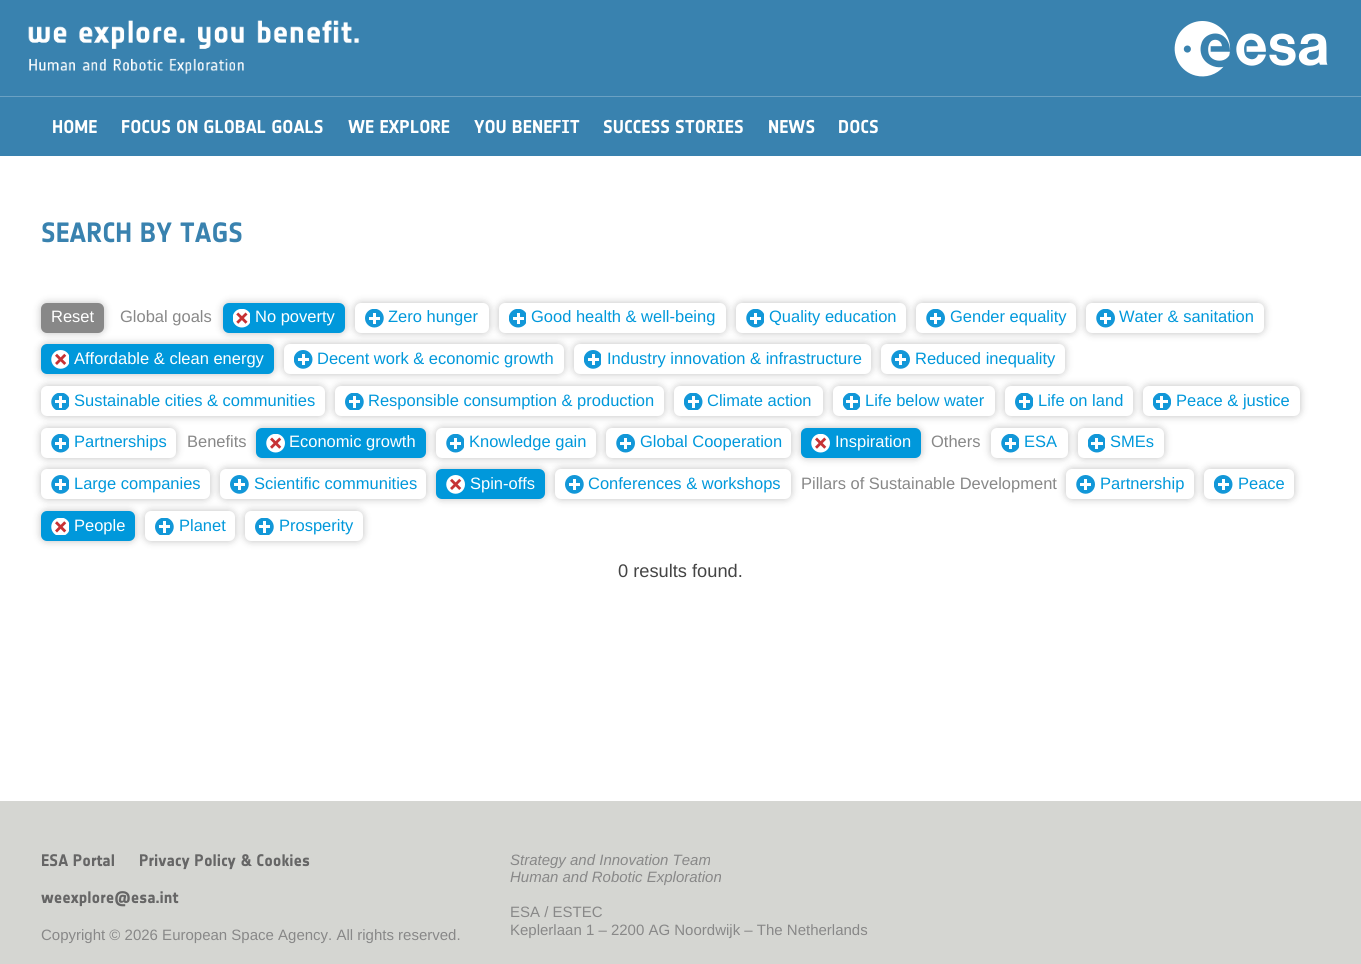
import math
import cairo


def use_color(cr, r, g, b):
  cr.set_source_rgb(r / 255, g / 255, b / 255)

def text(cr, x, y, s, family, size, color, bold=False, italic=False):
  cr.select_font_face(family, cairo.FONT_SLANT_ITALIC if italic else cairo.FONT_SLANT_NORMAL, cairo.FONT_WEIGHT_BOLD if bold else cairo.FONT_WEIGHT_NORMAL)
  cr.set_font_size(size)
  use_color(cr, *color)
  cr.move_to(x, y)
  cr.show_text(s)

def box(cr, x, y, w, h, *color):
  use_color(cr, *color)
  cr.rectangle(x, y, w, h)
  cr.fill()

def round_rect(cr, x, y, w, h, r):
  cr.new_sub_path()
  for i, (u, v) in enumerate([(x + w - r, y + h - r), (x + r, y + h - r), (x + r, y + r), (x + w - r, y + r)]):
    cr.arc(u, v, r, i * math.pi / 2, (i + 1) * math.pi / 2)
  cr.close_path()

def shadow(cr, x, y, w, h, r, blur, alpha):
  cr.push_group_with_content(cairo.CONTENT_ALPHA)
  cr.set_operator(cairo.OPERATOR_SOURCE)
  for i in range(15, -16, -2):
    e = blur * i / 6
    if min(w, h) + 2 * e > 0:
      cr.set_source_rgba(0, 0, 0, alpha * math.erfc((i - 1) / 8.5) / 2)
      round_rect(cr, x - e, y - e, w + 2 * e, h + 2 * e, max(0, min(r + e + blur * .6, min(w, h) / 2 + e)))
      cr.fill()
  cr.mask(cr.pop_group())

def picture(cr, path, x, y, w, h):
  cr.save()
  cr.set_source_surface(cairo.ImageSurface.create_from_png(path), x, y)
  cr.rectangle(x, y, w, h)
  cr.fill()
  cr.restore()

def draw(cr):
  use_color(cr, 255, 255, 255)
  cr.paint()
  box(cr, 0, 0, 1361, 96, 57, 130, 175)
  picture(cr, "img_01.png", 28, 20, 332, 55)
  picture(cr, "img_02.png", 1174, 21, 154, 56)
  box(cr, 0, 97, 1361, 59, 57, 130, 175)
  box(cr, 0, 96, 1361, 1, 107, 161, 195)
  use_color(cr, 0, 0, 0)
  shadow(cr, 41, 303, 63, 30, 6, 4, 0.25)
  use_color(cr, 136, 136, 136)
  round_rect(cr, 41, 303, 63, 30, 6)
  cr.fill()
  use_color(cr, 0, 0, 0)
  shadow(cr, 223, 303, 122, 30, 6, 4, 0.25)
  use_color(cr, 0, 152, 219)
  round_rect(cr, 223, 303, 122, 30, 6)
  cr.fill()
  picture(cr, "img_03.png", 233, 309, 17, 19)
  use_color(cr, 0, 0, 0)
  shadow(cr, 355, 303, 134, 30, 6, 4, 0.25)
  use_color(cr, 255, 255, 255)
  round_rect(cr, 355, 303, 134, 30, 6)
  cr.fill()
  picture(cr, "img_04.png", 365, 309, 19, 19)
  use_color(cr, 0, 0, 0)
  shadow(cr, 499, 303, 227, 30, 6, 4, 0.25)
  use_color(cr, 255, 255, 255)
  round_rect(cr, 499, 303, 227, 30, 6)
  cr.fill()
  picture(cr, "img_05.png", 509, 309, 17, 19)
  use_color(cr, 0, 0, 0)
  shadow(cr, 736, 303, 170, 30, 6, 4, 0.25)
  use_color(cr, 255, 255, 255)
  round_rect(cr, 736, 303, 170, 30, 6)
  cr.fill()
  picture(cr, "img_06.png", 746, 309, 18, 19)
  use_color(cr, 0, 0, 0)
  shadow(cr, 916, 303, 160, 30, 6, 4, 0.25)
  use_color(cr, 255, 255, 255)
  round_rect(cr, 916, 303, 160, 30, 6)
  cr.fill()
  picture(cr, "img_07.png", 926, 309, 19, 19)
  use_color(cr, 0, 0, 0)
  shadow(cr, 1086, 303, 178, 30, 6, 4, 0.25)
  use_color(cr, 255, 255, 255)
  round_rect(cr, 1086, 303, 178, 30, 6)
  cr.fill()
  picture(cr, "img_07.png", 1096, 309, 19, 19)
  use_color(cr, 0, 0, 0)
  shadow(cr, 41, 344, 233, 30, 6, 4, 0.25)
  use_color(cr, 0, 152, 219)
  round_rect(cr, 41, 344, 233, 30, 6)
  cr.fill()
  picture(cr, "img_08.png", 51, 350, 18, 19)
  use_color(cr, 0, 0, 0)
  shadow(cr, 284, 344, 280, 30, 6, 4, 0.25)
  use_color(cr, 255, 255, 255)
  round_rect(cr, 284, 344, 280, 30, 6)
  cr.fill()
  picture(cr, "img_09.png", 294, 350, 19, 19)
  use_color(cr, 0, 0, 0)
  shadow(cr, 574, 344, 297, 30, 6, 4, 0.25)
  use_color(cr, 255, 255, 255)
  round_rect(cr, 574, 344, 297, 30, 6)
  cr.fill()
  picture(cr, "img_10.png", 584, 350, 17, 19)
  use_color(cr, 0, 0, 0)
  shadow(cr, 881, 344, 184, 30, 6, 4, 0.25)
  use_color(cr, 255, 255, 255)
  round_rect(cr, 881, 344, 184, 30, 6)
  cr.fill()
  picture(cr, "img_11.png", 891, 350, 19, 19)
  use_color(cr, 0, 0, 0)
  shadow(cr, 41, 386, 284, 30, 6, 4, 0.25)
  use_color(cr, 255, 255, 255)
  round_rect(cr, 41, 386, 284, 30, 6)
  cr.fill()
  picture(cr, "img_12.png", 51, 393, 18, 17)
  use_color(cr, 0, 0, 0)
  shadow(cr, 335, 386, 329, 30, 6, 4, 0.25)
  use_color(cr, 255, 255, 255)
  round_rect(cr, 335, 386, 329, 30, 6)
  cr.fill()
  picture(cr, "img_13.png", 345, 393, 19, 17)
  use_color(cr, 0, 0, 0)
  shadow(cr, 674, 386, 149, 30, 6, 4, 0.25)
  use_color(cr, 255, 255, 255)
  round_rect(cr, 674, 386, 149, 30, 6)
  cr.fill()
  picture(cr, "img_14.png", 684, 393, 19, 17)
  use_color(cr, 0, 0, 0)
  shadow(cr, 833, 386, 162, 30, 6, 4, 0.25)
  use_color(cr, 255, 255, 255)
  round_rect(cr, 833, 386, 162, 30, 6)
  cr.fill()
  picture(cr, "img_15.png", 843, 393, 17, 17)
  use_color(cr, 0, 0, 0)
  shadow(cr, 1005, 386, 128, 30, 6, 4, 0.25)
  use_color(cr, 255, 255, 255)
  round_rect(cr, 1005, 386, 128, 30, 6)
  cr.fill()
  picture(cr, "img_16.png", 1015, 393, 18, 17)
  use_color(cr, 0, 0, 0)
  shadow(cr, 1143, 386, 157, 30, 6, 4, 0.25)
  use_color(cr, 255, 255, 255)
  round_rect(cr, 1143, 386, 157, 30, 6)
  cr.fill()
  picture(cr, "img_17.png", 1153, 393, 18, 17)
  use_color(cr, 0, 0, 0)
  shadow(cr, 41, 428, 135, 30, 6, 4, 0.25)
  use_color(cr, 255, 255, 255)
  round_rect(cr, 41, 428, 135, 30, 6)
  cr.fill()
  picture(cr, "img_06.png", 51, 434, 18, 19)
  use_color(cr, 0, 0, 0)
  shadow(cr, 256, 428, 170, 30, 6, 4, 0.25)
  use_color(cr, 0, 152, 219)
  round_rect(cr, 256, 428, 170, 30, 6)
  cr.fill()
  picture(cr, "img_18.png", 266, 434, 19, 19)
  use_color(cr, 0, 0, 0)
  shadow(cr, 436, 428, 160, 30, 6, 4, 0.25)
  use_color(cr, 255, 255, 255)
  round_rect(cr, 436, 428, 160, 30, 6)
  cr.fill()
  picture(cr, "img_06.png", 446, 434, 18, 19)
  use_color(cr, 0, 0, 0)
  shadow(cr, 606, 428, 185, 30, 6, 4, 0.25)
  use_color(cr, 255, 255, 255)
  round_rect(cr, 606, 428, 185, 30, 6)
  cr.fill()
  picture(cr, "img_07.png", 616, 434, 19, 19)
  use_color(cr, 0, 0, 0)
  shadow(cr, 801, 428, 120, 30, 6, 4, 0.25)
  use_color(cr, 0, 152, 219)
  round_rect(cr, 801, 428, 120, 30, 6)
  cr.fill()
  picture(cr, "img_18.png", 811, 434, 19, 19)
  use_color(cr, 0, 0, 0)
  shadow(cr, 991, 428, 77, 30, 6, 4, 0.25)
  use_color(cr, 255, 255, 255)
  round_rect(cr, 991, 428, 77, 30, 6)
  cr.fill()
  picture(cr, "img_06.png", 1001, 434, 18, 19)
  use_color(cr, 0, 0, 0)
  shadow(cr, 1078, 428, 86, 30, 6, 4, 0.25)
  use_color(cr, 255, 255, 255)
  round_rect(cr, 1078, 428, 86, 30, 6)
  cr.fill()
  picture(cr, "img_19.png", 1088, 434, 17, 19)
  use_color(cr, 0, 0, 0)
  shadow(cr, 41, 469, 169, 30, 6, 4, 0.25)
  use_color(cr, 255, 255, 255)
  round_rect(cr, 41, 469, 169, 30, 6)
  cr.fill()
  picture(cr, "img_20.png", 51, 475, 18, 19)
  use_color(cr, 0, 0, 0)
  shadow(cr, 220, 469, 206, 30, 6, 4, 0.25)
  use_color(cr, 255, 255, 255)
  round_rect(cr, 220, 469, 206, 30, 6)
  cr.fill()
  picture(cr, "img_21.png", 230, 475, 19, 19)
  use_color(cr, 0, 0, 0)
  shadow(cr, 436, 469, 109, 30, 6, 4, 0.25)
  use_color(cr, 0, 152, 219)
  round_rect(cr, 436, 469, 109, 30, 6)
  cr.fill()
  picture(cr, "img_22.png", 446, 475, 19, 19)
  use_color(cr, 0, 0, 0)
  shadow(cr, 555, 469, 236, 30, 6, 4, 0.25)
  use_color(cr, 255, 255, 255)
  round_rect(cr, 555, 469, 236, 30, 6)
  cr.fill()
  picture(cr, "img_21.png", 565, 475, 19, 19)
  use_color(cr, 0, 0, 0)
  shadow(cr, 1066, 469, 128, 30, 6, 4, 0.25)
  use_color(cr, 255, 255, 255)
  round_rect(cr, 1066, 469, 128, 30, 6)
  cr.fill()
  picture(cr, "img_11.png", 1076, 475, 19, 19)
  use_color(cr, 0, 0, 0)
  shadow(cr, 1204, 469, 90, 30, 6, 4, 0.25)
  use_color(cr, 255, 255, 255)
  round_rect(cr, 1204, 469, 90, 30, 6)
  cr.fill()
  picture(cr, "img_09.png", 1214, 475, 19, 19)
  use_color(cr, 0, 0, 0)
  shadow(cr, 41, 511, 94, 30, 6, 4, 0.25)
  use_color(cr, 0, 152, 219)
  round_rect(cr, 41, 511, 94, 30, 6)
  cr.fill()
  picture(cr, "img_23.png", 51, 518, 18, 17)
  use_color(cr, 0, 0, 0)
  shadow(cr, 145, 511, 90, 30, 6, 4, 0.25)
  use_color(cr, 255, 255, 255)
  round_rect(cr, 145, 511, 90, 30, 6)
  cr.fill()
  picture(cr, "img_13.png", 155, 518, 19, 17)
  use_color(cr, 0, 0, 0)
  shadow(cr, 245, 511, 118, 30, 6, 4, 0.25)
  use_color(cr, 255, 255, 255)
  round_rect(cr, 245, 511, 118, 30, 6)
  cr.fill()
  picture(cr, "img_13.png", 255, 518, 19, 17)
  box(cr, 0, 801, 1361, 163, 213, 214, 210)
  text(cr, 52, 133, "HOME", "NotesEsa", 18.25, (255, 255, 255), bold=True)
  text(cr, 121, 133, "FOCUS ON GLOBAL GOALS", "NotesEsa", 18.25, (255, 255, 255), bold=True)
  text(cr, 348, 133, "WE EXPLORE", "NotesEsa", 18.25, (255, 255, 255), bold=True)
  text(cr, 474, 133, "YOU BENEFIT", "NotesEsa", 18.25, (255, 255, 255), bold=True)
  text(cr, 603, 133, "SUCCESS STORIES", "NotesEsa", 18.25, (255, 255, 255), bold=True)
  text(cr, 768, 133, "NEWS", "NotesEsa", 18.25, (255, 255, 255), bold=True)
  text(cr, 838, 133, "DOCS", "NotesEsa", 18.25, (255, 255, 255), bold=True)
  text(cr, 41, 242, "SEARCH BY TAGS", "NotesEsa", 27.5, (57, 130, 175), bold=True)
  text(cr, 51, 322, "Reset", "Liberation Sans", 16.5, (255, 255, 255))
  text(cr, 120, 322, "Global goals", "Liberation Sans", 16.5, (136, 136, 136))
  text(cr, 255, 322, "No poverty", "Liberation Sans", 16.5, (255, 255, 255))
  text(cr, 388, 322, "Zero hunger", "Liberation Sans", 16.5, (0, 152, 219))
  text(cr, 531, 322, "Good health & well-being", "Liberation Sans", 16.5, (0, 152, 219))
  text(cr, 769, 322, "Quality education", "Liberation Sans", 16.5, (0, 152, 219))
  text(cr, 950, 322, "Gender equality", "Liberation Sans", 16.5, (0, 152, 219))
  text(cr, 1119, 322, "Water & sanitation", "Liberation Sans", 16.5, (0, 152, 219))
  text(cr, 74, 364, "Affordable & clean energy", "Liberation Sans", 16.5, (255, 255, 255))
  text(cr, 317, 364, "Decent work & economic growth", "Liberation Sans", 16.5, (0, 152, 219))
  text(cr, 607, 364, "Industry innovation & infrastructure", "Liberation Sans", 16.5, (0, 152, 219))
  text(cr, 915, 364, "Reduced inequality", "Liberation Sans", 16.5, (0, 152, 219))
  text(cr, 74, 406, "Sustainable cities & communities", "Liberation Sans", 16.5, (0, 152, 219))
  text(cr, 368, 406, "Responsible consumption & production", "Liberation Sans", 16.5, (0, 152, 219))
  text(cr, 707, 406, "Climate action", "Liberation Sans", 16.5, (0, 152, 219))
  text(cr, 865, 406, "Life below water", "Liberation Sans", 16.5, (0, 152, 219))
  text(cr, 1038, 406, "Life on land", "Liberation Sans", 16.5, (0, 152, 219))
  text(cr, 1176, 406, "Peace & justice", "Liberation Sans", 16.5, (0, 152, 219))
  text(cr, 74, 447, "Partnerships", "Liberation Sans", 16.5, (0, 152, 219))
  text(cr, 187, 447, "Benefits", "Liberation Sans", 16.5, (136, 136, 136))
  text(cr, 289, 447, "Economic growth", "Liberation Sans", 16.5, (255, 255, 255))
  text(cr, 469, 447, "Knowledge gain", "Liberation Sans", 16.5, (0, 152, 219))
  text(cr, 640, 447, "Global Cooperation", "Liberation Sans", 16.5, (0, 152, 219))
  text(cr, 835, 447, "Inspiration", "Liberation Sans", 16.5, (255, 255, 255))
  text(cr, 931, 447, "Others", "Liberation Sans", 16.5, (136, 136, 136))
  text(cr, 1024, 447, "ESA", "Liberation Sans", 16.5, (0, 152, 219))
  text(cr, 1110, 447, "SMEs", "Liberation Sans", 16.5, (0, 152, 219))
  text(cr, 74, 489, "Large companies", "Liberation Sans", 16.5, (0, 152, 219))
  text(cr, 254, 489, "Scientific communities", "Liberation Sans", 16.5, (0, 152, 219))
  text(cr, 470, 489, "Spin-offs", "Liberation Sans", 16.5, (255, 255, 255))
  text(cr, 588, 489, "Conferences & workshops", "Liberation Sans", 16.5, (0, 152, 219))
  text(cr, 801, 489, "Pillars of Sustainable Development", "Liberation Sans", 16.5, (136, 136, 136))
  text(cr, 1100, 489, "Partnership", "Liberation Sans", 16.5, (0, 152, 219))
  text(cr, 1238, 489, "Peace", "Liberation Sans", 16.5, (0, 152, 219))
  text(cr, 74, 531, "People", "Liberation Sans", 16.5, (255, 255, 255))
  text(cr, 179, 531, "Planet", "Liberation Sans", 16.5, (0, 152, 219))
  text(cr, 279, 531, "Prosperity", "Liberation Sans", 16.5, (0, 152, 219))
  text(cr, 618, 577, "0 results found.", "Liberation Sans", 18.25, (68, 68, 68))
  text(cr, 41, 866, "ESA Portal", "NotesEsa", 16.5, (102, 102, 102), bold=True)
  text(cr, 139, 866, "Privacy Policy & Cookies", "NotesEsa", 16.5, (102, 102, 102), bold=True)
  text(cr, 41, 903, "weexplore@esa.int", "NotesEsa", 16.5, (102, 102, 102), bold=True)
  text(cr, 41, 940, "Copyright © 2026 European Space Agency. All rights reserved.", "Liberation Sans", 15, (136, 136, 136))
  text(cr, 510, 865, "Strategy and Innovation Team", "Liberation Sans", 15, (136, 136, 136), italic=True)
  text(cr, 510, 882, "Human and Robotic Exploration", "Liberation Sans", 15, (136, 136, 136), italic=True)
  text(cr, 510, 917, "ESA / ESTEC", "Liberation Sans", 15, (136, 136, 136))
  text(cr, 510, 935, "Keplerlaan 1 – 2200 AG Noordwijk – The Netherlands", "Liberation Sans", 15, (136, 136, 136))


surface = cairo.ImageSurface(cairo.FORMAT_RGB24, 1361, 964)
cr = cairo.Context(surface)
options = cairo.FontOptions()
options.set_hint_metrics(cairo.HINT_METRICS_OFF)
options.set_hint_style(cairo.HINT_STYLE_NONE)
cr.set_font_options(options)
cr.set_miter_limit(4)
draw(cr)
surface.write_to_png("out.png")
